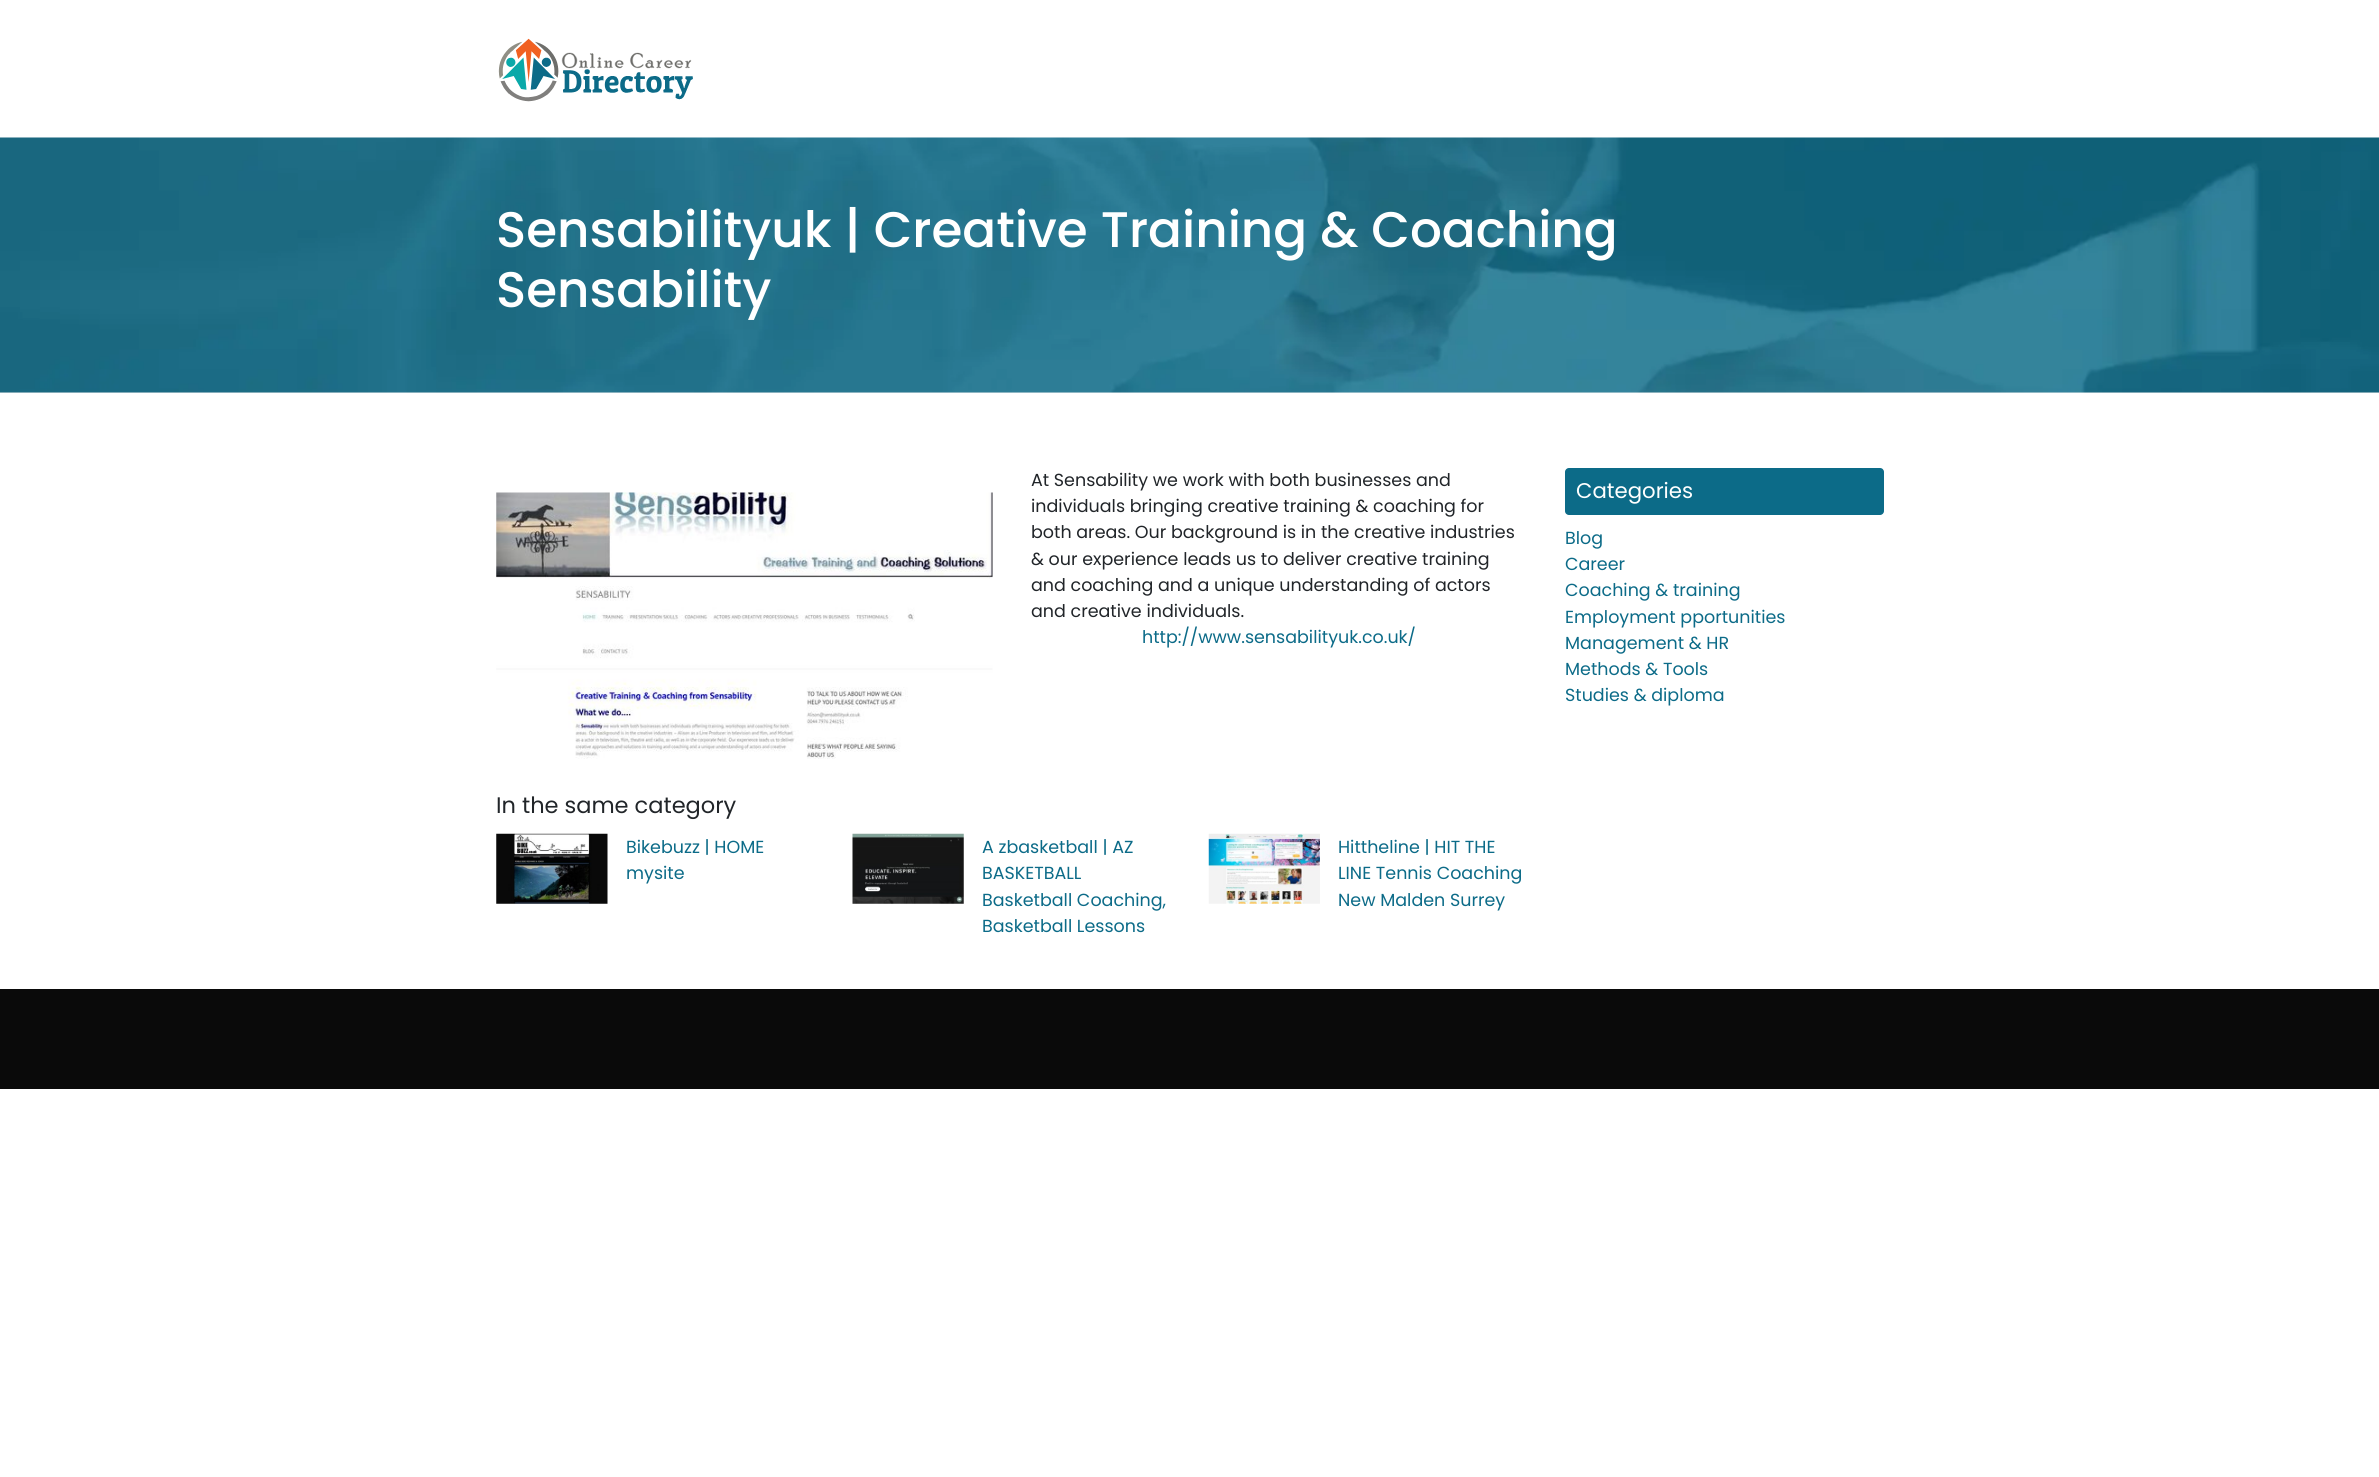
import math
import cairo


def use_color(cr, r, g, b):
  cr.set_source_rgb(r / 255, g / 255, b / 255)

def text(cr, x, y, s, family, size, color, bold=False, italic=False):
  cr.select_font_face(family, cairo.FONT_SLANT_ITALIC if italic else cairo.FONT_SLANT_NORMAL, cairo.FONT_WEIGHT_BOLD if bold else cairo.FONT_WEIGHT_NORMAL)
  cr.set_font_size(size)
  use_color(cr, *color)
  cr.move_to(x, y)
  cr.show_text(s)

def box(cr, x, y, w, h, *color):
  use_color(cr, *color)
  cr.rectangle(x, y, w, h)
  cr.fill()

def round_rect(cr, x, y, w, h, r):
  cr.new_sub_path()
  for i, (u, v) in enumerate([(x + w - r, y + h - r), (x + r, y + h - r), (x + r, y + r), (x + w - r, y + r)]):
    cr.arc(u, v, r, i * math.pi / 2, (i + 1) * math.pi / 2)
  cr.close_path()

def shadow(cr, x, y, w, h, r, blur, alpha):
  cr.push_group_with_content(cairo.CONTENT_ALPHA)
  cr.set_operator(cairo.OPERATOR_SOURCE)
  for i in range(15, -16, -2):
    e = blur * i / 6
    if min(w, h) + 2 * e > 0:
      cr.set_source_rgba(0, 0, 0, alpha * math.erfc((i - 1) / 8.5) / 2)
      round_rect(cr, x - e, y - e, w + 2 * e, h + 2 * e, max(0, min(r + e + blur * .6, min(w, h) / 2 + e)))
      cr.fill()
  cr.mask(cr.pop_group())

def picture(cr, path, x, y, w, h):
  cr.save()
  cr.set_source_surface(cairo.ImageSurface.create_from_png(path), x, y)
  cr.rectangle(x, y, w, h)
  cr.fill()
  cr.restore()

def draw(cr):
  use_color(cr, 255, 255, 255)
  cr.paint()
  cr.save()
  cr.set_fill_rule(cairo.FILL_RULE_EVEN_ODD)
  cr.new_path()
  cr.move_to(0, 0)
  cr.line_to(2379, 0)
  cr.line_to(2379, 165)
  cr.line_to(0, 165)
  cr.close_path()
  cr.move_to(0, 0)
  cr.line_to(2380, 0)
  cr.line_to(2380, 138)
  cr.line_to(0, 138)
  cr.close_path()
  cr.clip()
  use_color(cr, 0, 0, 0)
  shadow(cr, 0, 3, 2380, 137, 0, 8, 0.1)
  cr.restore()
  picture(cr, "img_01.png", 498, 38, 195, 64)
  box(cr, 0, 392, 2379, 1, 238, 238, 238)
  picture(cr, "img_02.png", 0, 137, 2379, 256)
  picture(cr, "img_03.png", 496, 492, 497, 267)
  picture(cr, "img_04.png", 496, 833, 112, 71)
  picture(cr, "img_05.png", 852, 833, 112, 71)
  picture(cr, "img_06.png", 1208, 833, 112, 71)
  use_color(cr, 12, 107, 136)
  round_rect(cr, 1565, 468, 319, 47, 4)
  cr.fill()
  box(cr, 0, 989, 2379, 100, 10, 10, 10)
  text(cr, 496, 247, "Sensabilityuk | Creative Training & Coaching", "Poppins Medium", 50, (255, 255, 255))
  text(cr, 496, 307, "Sensability", "Poppins Medium", 50, (255, 255, 255))
  text(cr, 1031, 486, "At Sensability we work with both businesses and", "Poppins", 17.5, (33, 37, 41))
  text(cr, 1031, 512, "individuals bringing creative training & coaching for", "Poppins", 17.5, (33, 37, 41))
  text(cr, 1031, 538, "both areas. Our background is in the creative industries", "Poppins", 17.5, (33, 37, 41))
  text(cr, 1031, 565, "& our experience leads us to deliver creative training", "Poppins", 17.5, (33, 37, 41))
  text(cr, 1031, 591, "and coaching and a unique understanding of actors", "Poppins", 17.5, (33, 37, 41))
  text(cr, 1031, 617, "and creative individuals.", "Poppins", 17.5, (33, 37, 41))
  text(cr, 1142, 643, "http://www.sensabilityuk.co.uk/", "Poppins", 17.5, (12, 107, 136))
  text(cr, 496, 813, "In the same category", "Poppins", 22.5, (33, 37, 41))
  text(cr, 626, 853, "Bikebuzz | HOME", "Poppins", 17.5, (12, 107, 136))
  text(cr, 626, 879, "mysite", "Poppins", 17.5, (12, 107, 136))
  text(cr, 982, 853, "A zbasketball | AZ", "Poppins", 17.5, (12, 107, 136))
  text(cr, 982, 879, "BASKETBALL", "Poppins", 17.5, (12, 107, 136))
  text(cr, 982, 906, "Basketball Coaching,", "Poppins", 17.5, (12, 107, 136))
  text(cr, 982, 932, "Basketball Lessons", "Poppins", 17.5, (12, 107, 136))
  text(cr, 1338, 853, "Hittheline | HIT THE", "Poppins", 17.5, (12, 107, 136))
  text(cr, 1338, 879, "LINE Tennis Coaching", "Poppins", 17.5, (12, 107, 136))
  text(cr, 1338, 906, "New Malden Surrey", "Poppins", 17.5, (12, 107, 136))
  text(cr, 1576, 498, "Categories", "Poppins", 21.25, (255, 255, 255))
  text(cr, 1565, 544, "Blog", "Poppins", 17.5, (12, 107, 136))
  text(cr, 1565, 570, "Career", "Poppins", 17.5, (12, 107, 136))
  text(cr, 1565, 596, "Coaching & training", "Poppins", 17.5, (12, 107, 136))
  text(cr, 1565, 623, "Employment pportunities", "Poppins", 17.5, (12, 107, 136))
  text(cr, 1565, 649, "Management & HR", "Poppins", 17.5, (12, 107, 136))
  text(cr, 1565, 675, "Methods & Tools", "Poppins", 17.5, (12, 107, 136))
  text(cr, 1565, 701, "Studies & diploma", "Poppins", 17.5, (12, 107, 136))


surface = cairo.ImageSurface(cairo.FORMAT_RGB24, 2379, 1477)
cr = cairo.Context(surface)
options = cairo.FontOptions()
options.set_hint_metrics(cairo.HINT_METRICS_OFF)
options.set_hint_style(cairo.HINT_STYLE_NONE)
cr.set_font_options(options)
cr.set_miter_limit(4)
draw(cr)
surface.write_to_png("out.png")
